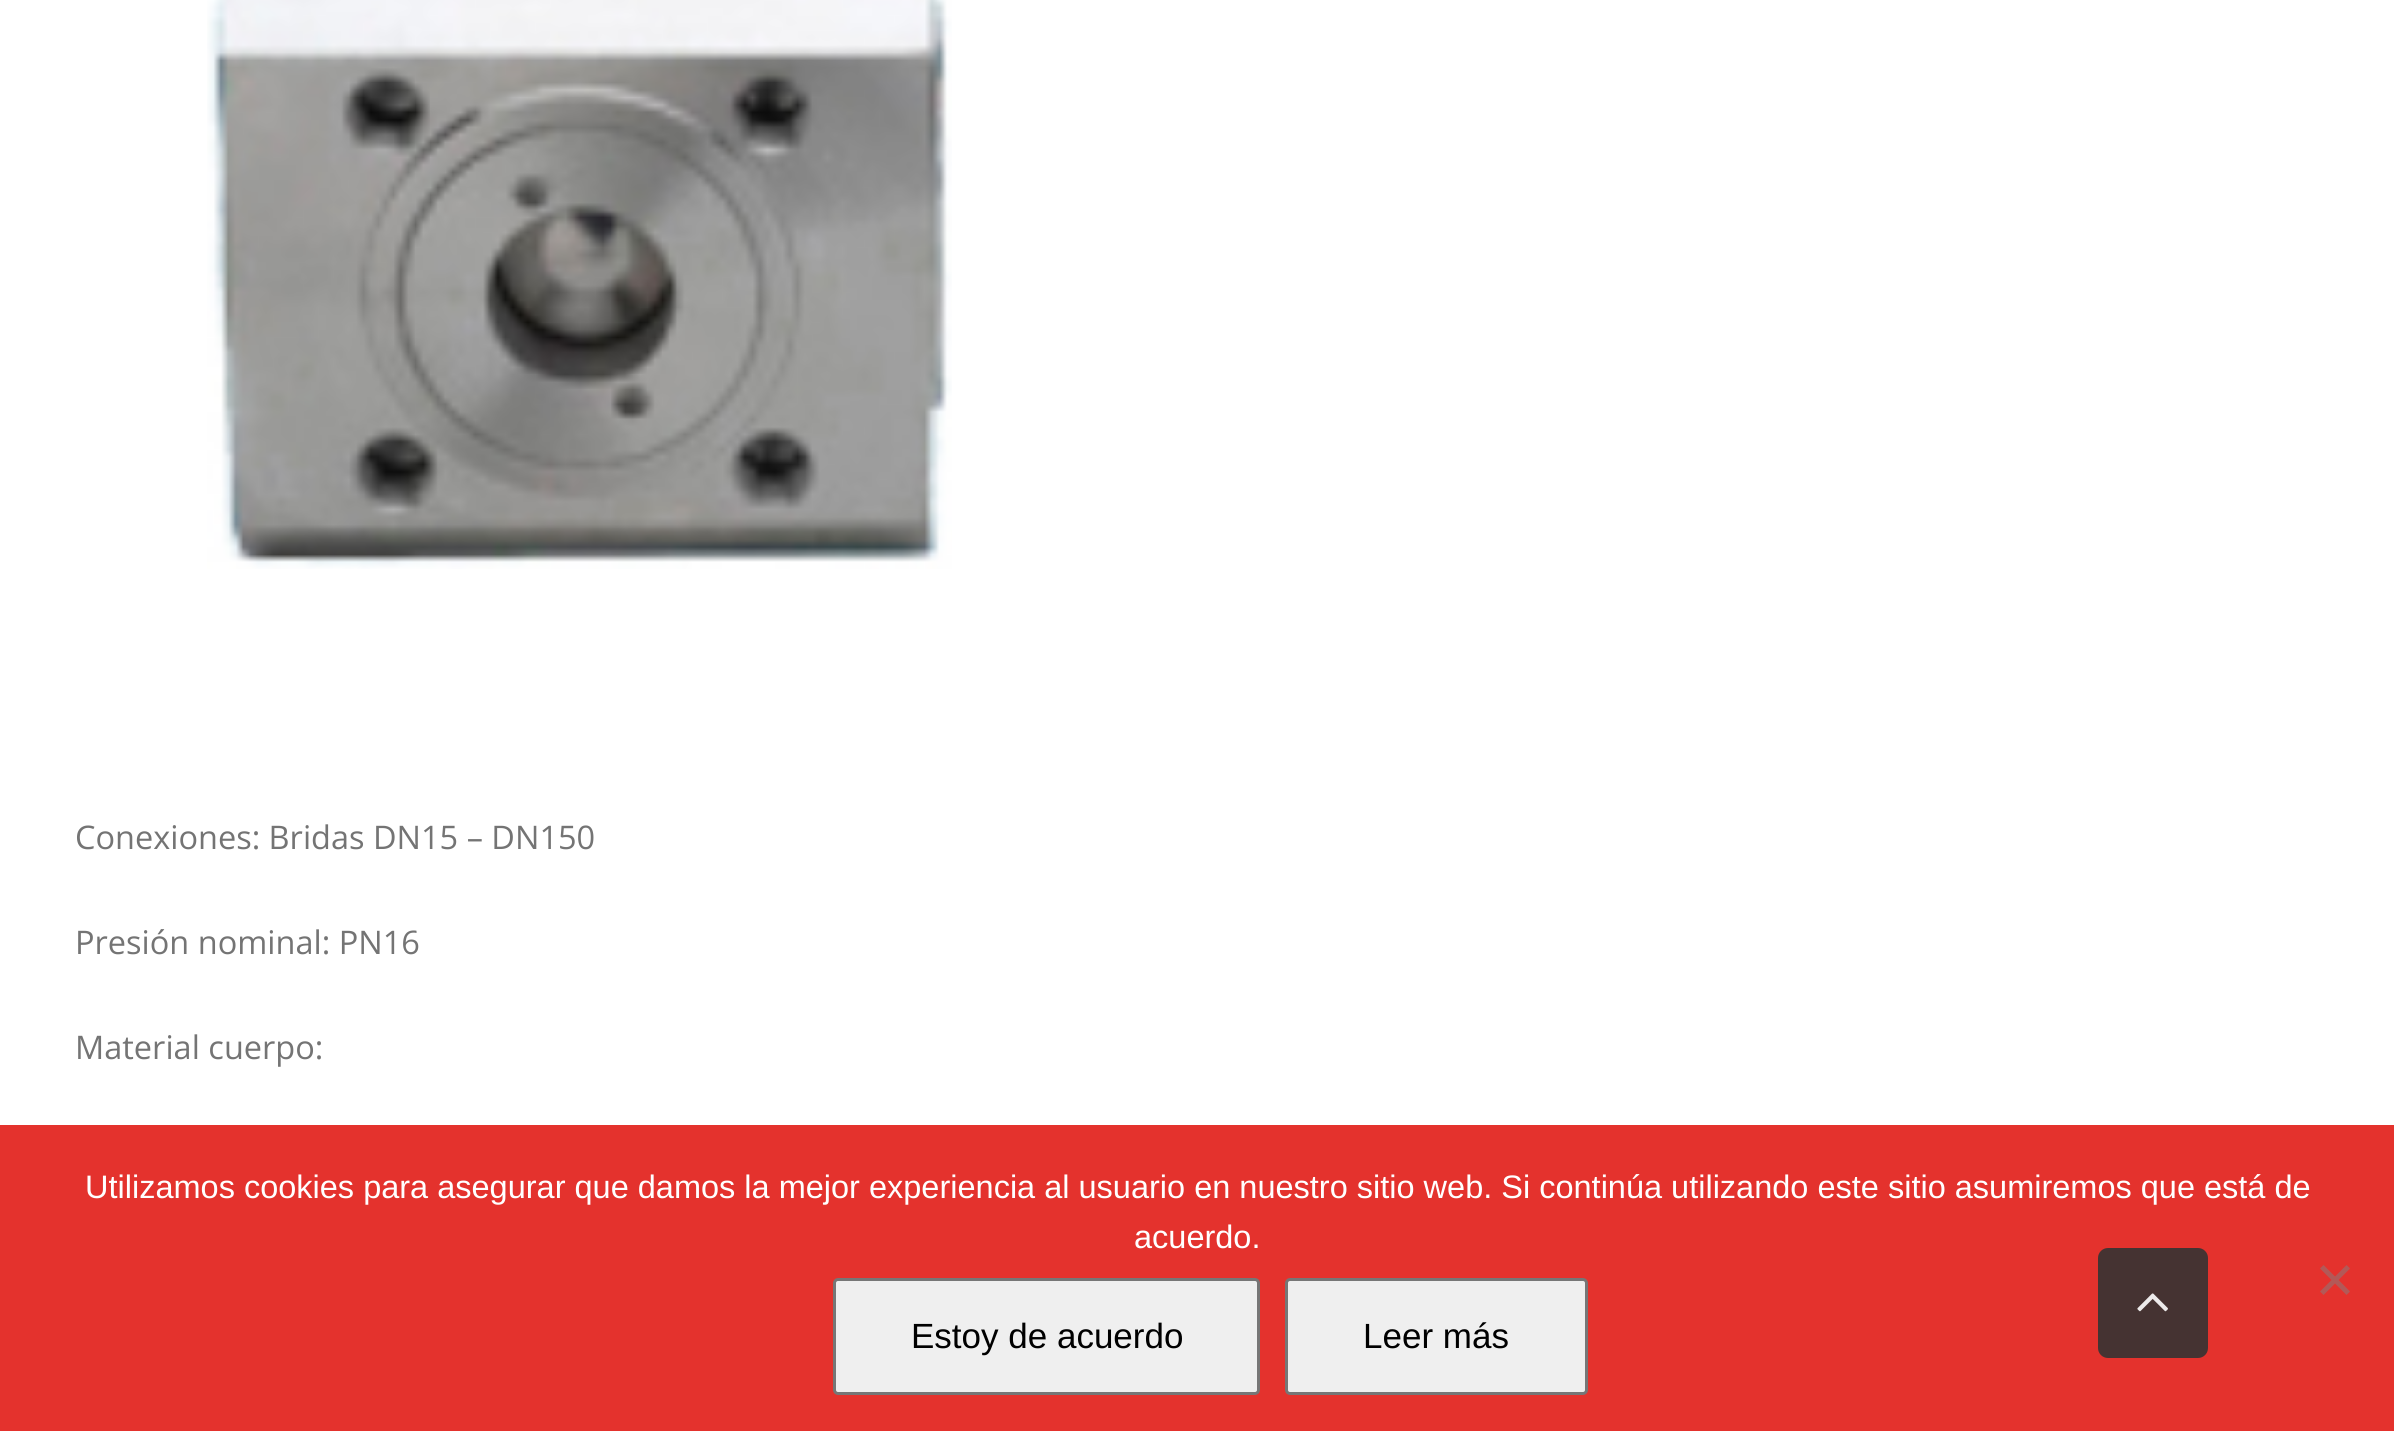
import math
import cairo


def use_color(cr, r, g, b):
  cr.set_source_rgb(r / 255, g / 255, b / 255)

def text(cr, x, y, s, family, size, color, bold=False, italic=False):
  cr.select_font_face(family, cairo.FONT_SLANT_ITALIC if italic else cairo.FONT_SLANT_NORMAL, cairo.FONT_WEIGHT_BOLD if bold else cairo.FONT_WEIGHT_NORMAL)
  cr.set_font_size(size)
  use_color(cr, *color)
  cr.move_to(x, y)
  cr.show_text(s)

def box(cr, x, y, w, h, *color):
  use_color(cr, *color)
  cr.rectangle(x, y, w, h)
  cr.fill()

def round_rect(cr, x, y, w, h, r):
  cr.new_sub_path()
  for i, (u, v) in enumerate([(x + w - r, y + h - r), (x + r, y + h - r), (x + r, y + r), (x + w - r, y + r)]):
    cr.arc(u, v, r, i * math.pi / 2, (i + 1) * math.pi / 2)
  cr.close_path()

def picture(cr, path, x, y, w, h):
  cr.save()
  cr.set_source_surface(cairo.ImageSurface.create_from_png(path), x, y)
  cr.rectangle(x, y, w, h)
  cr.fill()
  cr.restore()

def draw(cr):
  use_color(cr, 255, 255, 255)
  cr.paint()
  picture(cr, "img_01.png", 207, 0, 745, 569)
  box(cr, 0, 1125, 2394, 306, 228, 50, 45)
  use_color(cr, 178, 89, 87)
  cr.new_path()
  cr.move_to(2346.5, 1265)
  cr.line_to(2350, 1268.5)
  cr.line_to(2323.5, 1295)
  cr.line_to(2320, 1291.5)
  cr.close_path()
  cr.fill()
  cr.new_path()
  cr.move_to(2320, 1268.5)
  cr.line_to(2323.5, 1265)
  cr.line_to(2350, 1291.5)
  cr.line_to(2346.5, 1295)
  cr.close_path()
  cr.fill()
  use_color(cr, 239, 239, 239)
  round_rect(cr, 834.5, 1279.5, 424, 114, 3.5)
  cr.fill_preserve()
  use_color(cr, 118, 118, 118)
  cr.set_line_width(3)
  cr.stroke()
  use_color(cr, 239, 239, 239)
  round_rect(cr, 1286.5, 1279.5, 300, 114, 3.5)
  cr.fill_preserve()
  use_color(cr, 118, 118, 118)
  cr.stroke()
  use_color(cr, 69, 51, 50)
  round_rect(cr, 2098, 1248, 110, 110, 10)
  cr.fill()
  picture(cr, "img_02.png", 2137, 1293, 31, 19)
  text(cr, 75, 849, "Conexiones: Bridas DN15 – DN150", "Open Sans", 32.5, (116, 116, 116))
  text(cr, 75, 954, "Presión nominal: PN16", "Open Sans", 32.5, (116, 116, 116))
  text(cr, 75, 1059, "Material cuerpo:", "Open Sans", 32.5, (116, 116, 116))
  text(cr, 85, 1198, "Utilizamos cookies para asegurar que damos la mejor experiencia al usuario en nuestro sitio web. Si continúa utilizando este sitio asumiremos que está de", "Liberation Sans", 32.5, (255, 255, 255))
  text(cr, 1134, 1248, "acuerdo.", "Liberation Sans", 32.5, (255, 255, 255))
  text(cr, 911, 1348, "Estoy de acuerdo", "Liberation Sans", 35, (0, 0, 0))
  text(cr, 1363, 1348, "Leer más", "Liberation Sans", 35, (0, 0, 0))


surface = cairo.ImageSurface(cairo.FORMAT_RGB24, 2394, 1431)
cr = cairo.Context(surface)
options = cairo.FontOptions()
options.set_hint_metrics(cairo.HINT_METRICS_OFF)
options.set_hint_style(cairo.HINT_STYLE_NONE)
cr.set_font_options(options)
cr.set_miter_limit(4)
draw(cr)
surface.write_to_png("out.png")
